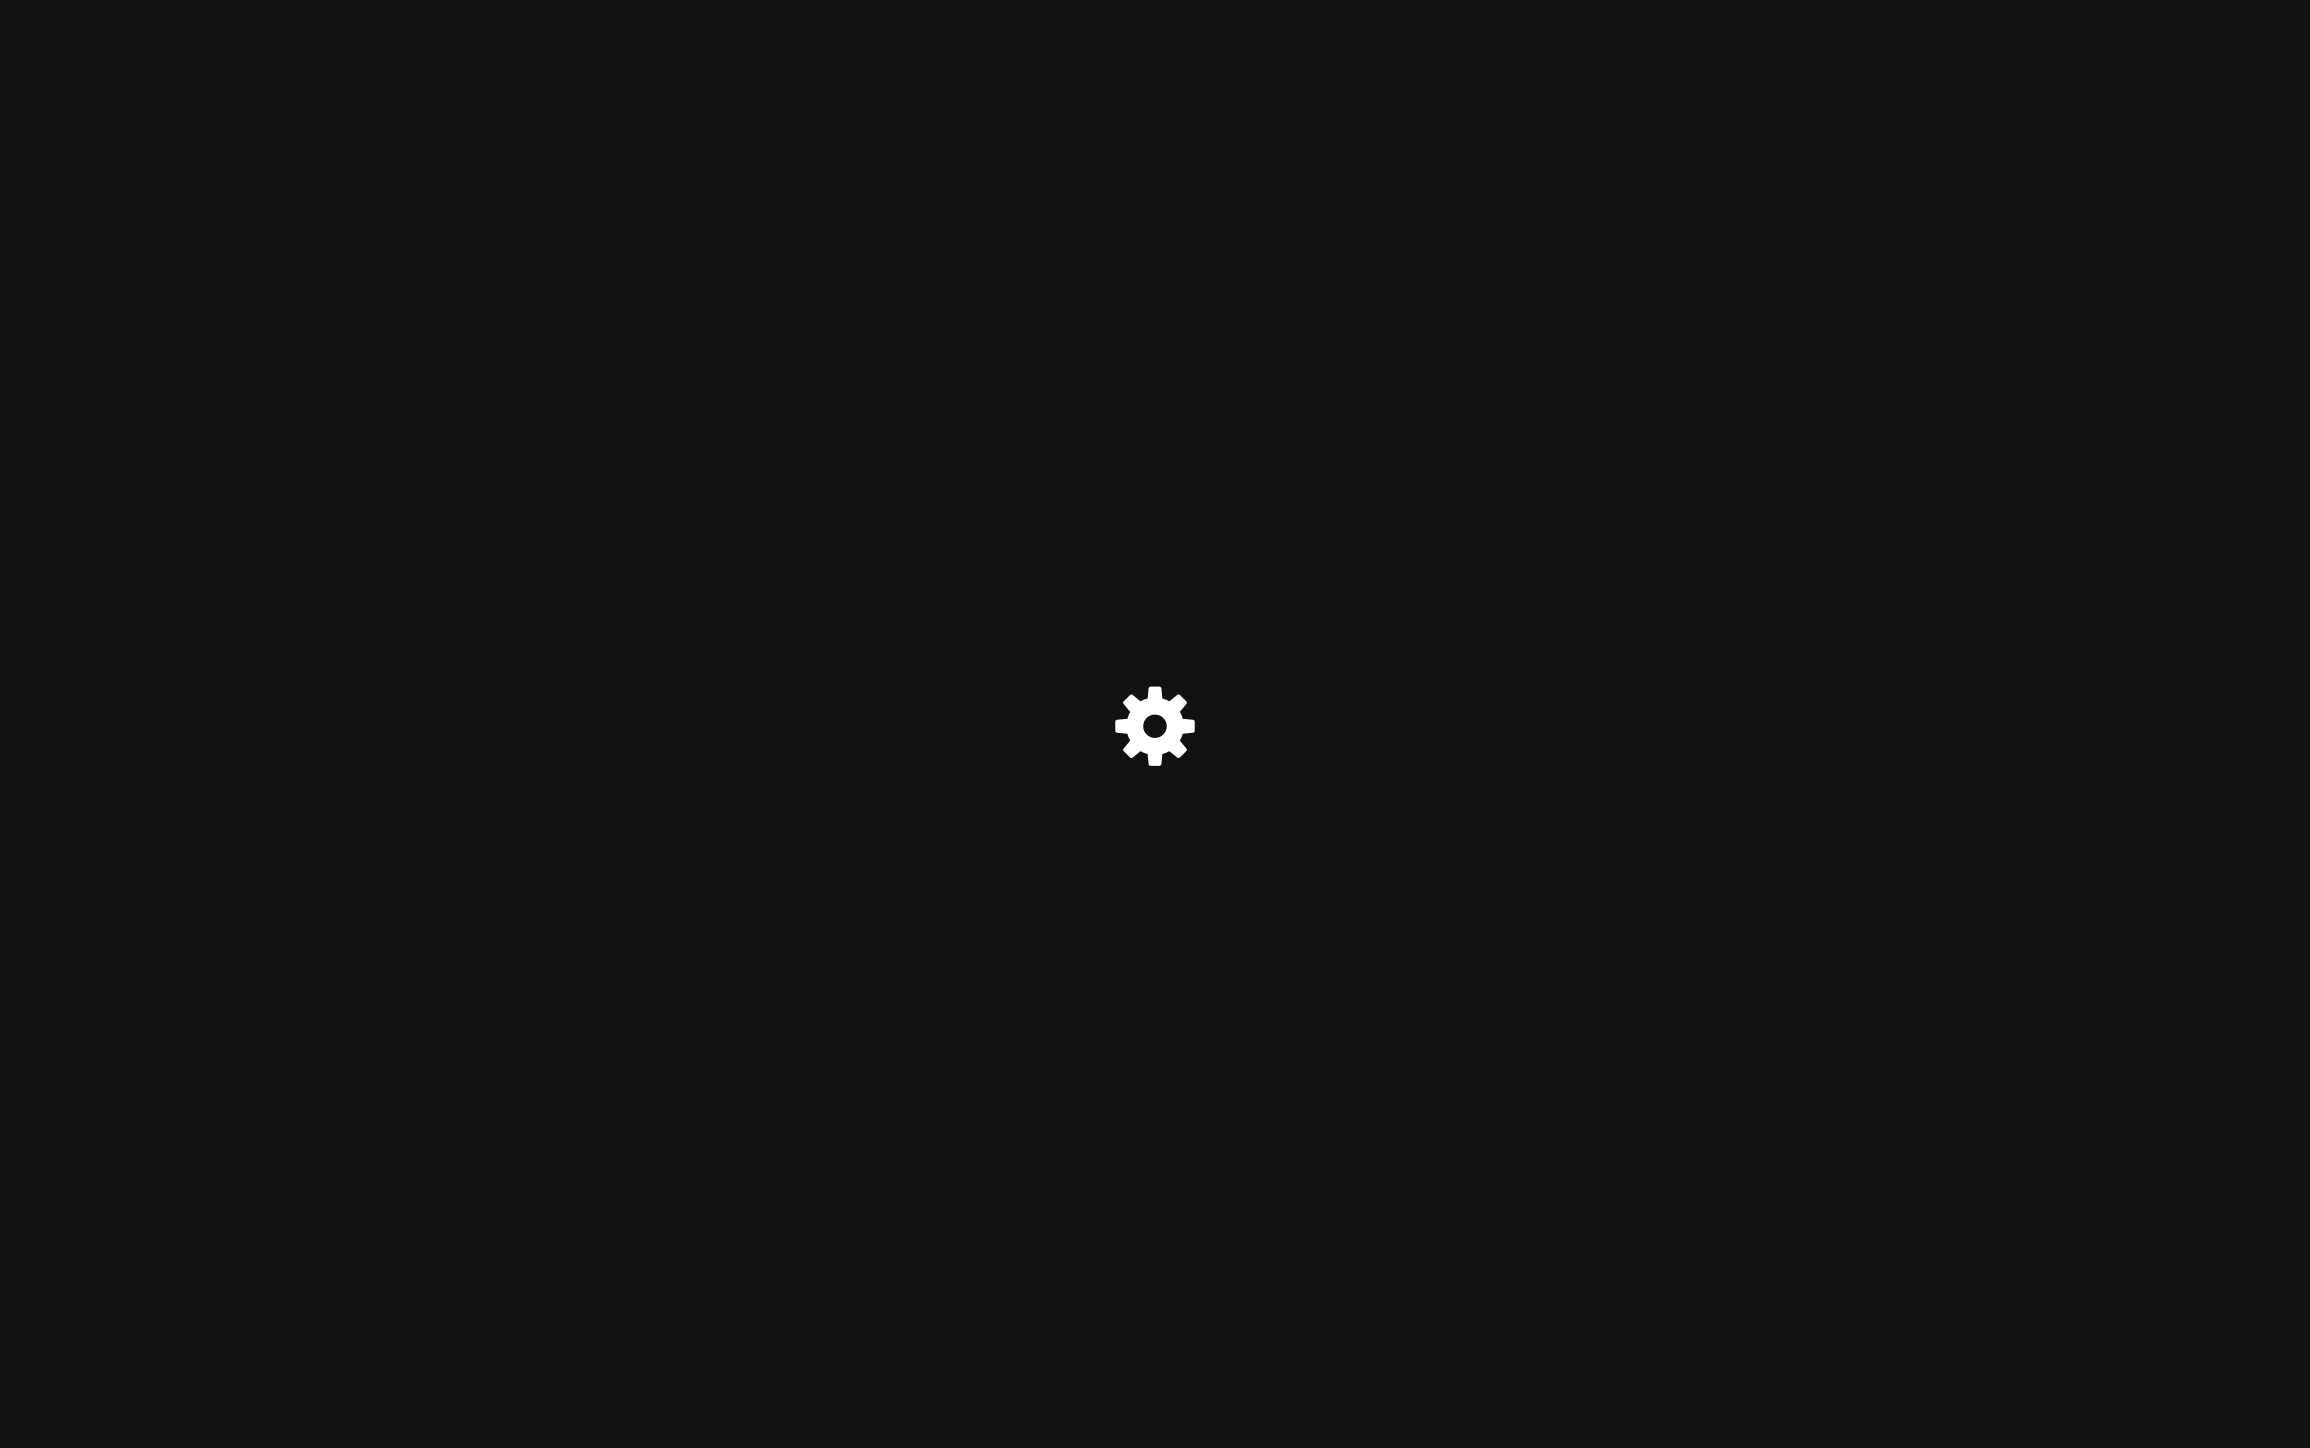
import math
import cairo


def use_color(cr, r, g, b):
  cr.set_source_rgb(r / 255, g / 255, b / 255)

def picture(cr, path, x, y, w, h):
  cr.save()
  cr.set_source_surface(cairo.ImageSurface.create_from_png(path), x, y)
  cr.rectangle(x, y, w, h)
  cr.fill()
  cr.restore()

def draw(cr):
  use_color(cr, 17, 17, 17)
  cr.paint()
  picture(cr, "img_01.png", 1115, 686, 80, 80)


surface = cairo.ImageSurface(cairo.FORMAT_RGB24, 2310, 1448)
cr = cairo.Context(surface)
options = cairo.FontOptions()
options.set_hint_metrics(cairo.HINT_METRICS_OFF)
options.set_hint_style(cairo.HINT_STYLE_NONE)
cr.set_font_options(options)
cr.set_miter_limit(4)
draw(cr)
surface.write_to_png("out.png")
